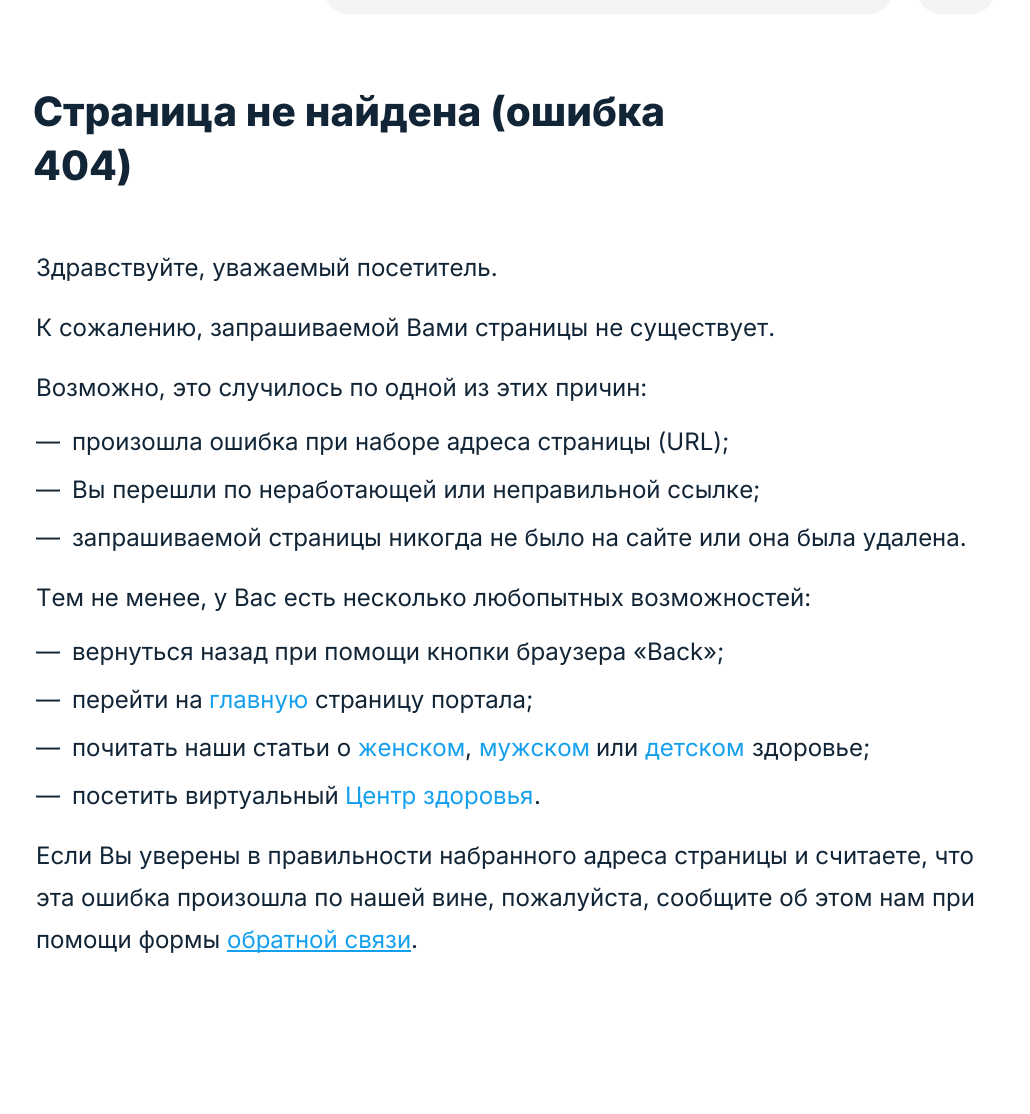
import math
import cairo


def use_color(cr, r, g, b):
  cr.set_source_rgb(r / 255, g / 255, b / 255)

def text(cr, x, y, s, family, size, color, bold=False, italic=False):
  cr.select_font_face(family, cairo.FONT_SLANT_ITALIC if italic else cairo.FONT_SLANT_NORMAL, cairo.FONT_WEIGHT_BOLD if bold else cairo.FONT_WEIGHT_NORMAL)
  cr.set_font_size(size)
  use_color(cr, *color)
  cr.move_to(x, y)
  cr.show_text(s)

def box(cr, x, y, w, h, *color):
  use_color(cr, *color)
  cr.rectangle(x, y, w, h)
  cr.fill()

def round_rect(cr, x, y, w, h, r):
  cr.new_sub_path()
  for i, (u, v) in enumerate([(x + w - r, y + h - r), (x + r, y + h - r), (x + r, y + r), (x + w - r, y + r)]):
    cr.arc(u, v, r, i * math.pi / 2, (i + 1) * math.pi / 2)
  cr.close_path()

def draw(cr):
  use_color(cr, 255, 255, 255)
  cr.paint()
  use_color(cr, 243, 244, 245)
  round_rect(cr, 324, -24, 569, 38, 24)
  cr.fill()
  round_rect(cr, 917, -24, 78, 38, 24)
  cr.fill()
  box(cr, 227, 950, 184, 2, 21, 160, 238)
  text(cr, 33, 126, "Страница не найдена (ошибка", "Inter ExtraBold", 40.5, (18, 37, 54))
  text(cr, 33, 180, "404)", "Inter ExtraBold", 40.5, (18, 37, 54))
  text(cr, 36, 276, "Здравствуйте, уважаемый посетитель.", "Inter", 24, (18, 37, 54))
  text(cr, 36, 336, "К сожалению, запрашиваемой Вами страницы не существует.", "Inter", 24, (18, 37, 54))
  text(cr, 36, 396, "Возможно, это случилось по одной из этих причин:", "Inter", 24, (18, 37, 54))
  text(cr, 36, 450, "—", "Inter", 24, (18, 37, 54))
  text(cr, 72, 450, "произошла ошибка при наборе адреса страницы (URL);", "Inter", 24, (18, 37, 54))
  text(cr, 36, 498, "—", "Inter", 24, (18, 37, 54))
  text(cr, 72, 498, "Вы перешли по неработающей или неправильной ссылке;", "Inter", 24, (18, 37, 54))
  text(cr, 36, 546, "—", "Inter", 24, (18, 37, 54))
  text(cr, 72, 546, "запрашиваемой страницы никогда не было на сайте или она была удалена.", "Inter", 24, (18, 37, 54))
  text(cr, 36, 606, "Тем не менее, у Вас есть несколько любопытных возможностей:", "Inter", 24, (18, 37, 54))
  text(cr, 36, 660, "—", "Inter", 24, (18, 37, 54))
  text(cr, 72, 660, "вернуться назад при помощи кнопки браузера «Back»;", "Inter", 24, (18, 37, 54))
  text(cr, 36, 708, "—", "Inter", 24, (18, 37, 54))
  text(cr, 72, 708, "перейти на", "Inter", 24, (18, 37, 54))
  text(cr, 209, 708, "главную", "Inter", 24, (21, 160, 238))
  text(cr, 315, 708, "страницу портала;", "Inter", 24, (18, 37, 54))
  text(cr, 36, 756, "—", "Inter", 24, (18, 37, 54))
  text(cr, 72, 756, "почитать наши статьи о", "Inter", 24, (18, 37, 54))
  text(cr, 358, 756, "женском", "Inter", 24, (21, 160, 238))
  text(cr, 479, 756, "мужском", "Inter", 24, (21, 160, 238))
  text(cr, 596, 756, "или", "Inter", 24, (18, 37, 54))
  text(cr, 645, 756, "детском", "Inter", 24, (21, 160, 238))
  text(cr, 752, 756, "здоровье;", "Inter", 24, (18, 37, 54))
  text(cr, 465, 756, ",", "Inter", 24, (18, 37, 54))
  text(cr, 36, 804, "—", "Inter", 24, (18, 37, 54))
  text(cr, 72, 804, "посетить виртуальный", "Inter", 24, (18, 37, 54))
  text(cr, 345, 804, "Центр здоровья", "Inter", 24, (21, 160, 238))
  text(cr, 534, 804, ".", "Inter", 24, (18, 37, 54))
  text(cr, 36, 864, "Если Вы уверены в правильности набранного адреса страницы и считаете, что", "Inter", 24, (18, 37, 54))
  text(cr, 36, 906, "эта ошибка произошла по нашей вине, пожалуйста, сообщите об этом нам при", "Inter", 24, (18, 37, 54))
  text(cr, 36, 948, "помощи формы", "Inter", 24, (18, 37, 54))
  text(cr, 227, 948, "обратной связи", "Inter", 24, (21, 160, 238))
  text(cr, 411, 948, ".", "Inter", 24, (18, 37, 54))


surface = cairo.ImageSurface(cairo.FORMAT_RGB24, 1030, 1114)
cr = cairo.Context(surface)
options = cairo.FontOptions()
options.set_hint_metrics(cairo.HINT_METRICS_OFF)
options.set_hint_style(cairo.HINT_STYLE_NONE)
cr.set_font_options(options)
cr.set_miter_limit(4)
draw(cr)
surface.write_to_png("out.png")
